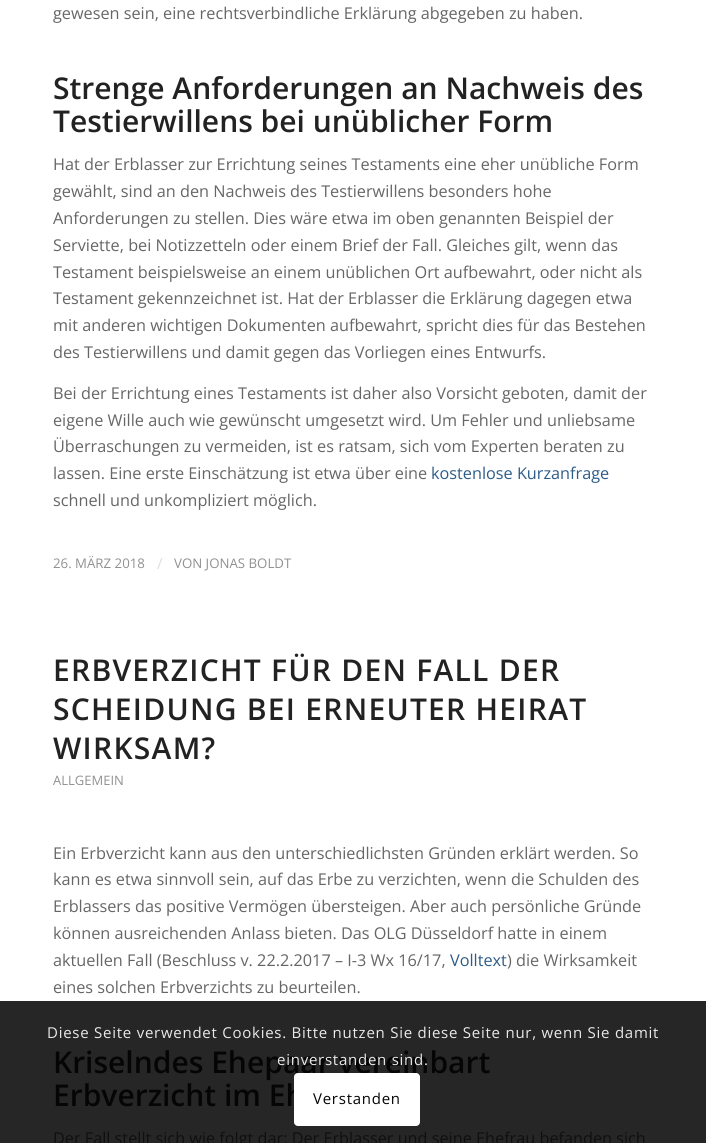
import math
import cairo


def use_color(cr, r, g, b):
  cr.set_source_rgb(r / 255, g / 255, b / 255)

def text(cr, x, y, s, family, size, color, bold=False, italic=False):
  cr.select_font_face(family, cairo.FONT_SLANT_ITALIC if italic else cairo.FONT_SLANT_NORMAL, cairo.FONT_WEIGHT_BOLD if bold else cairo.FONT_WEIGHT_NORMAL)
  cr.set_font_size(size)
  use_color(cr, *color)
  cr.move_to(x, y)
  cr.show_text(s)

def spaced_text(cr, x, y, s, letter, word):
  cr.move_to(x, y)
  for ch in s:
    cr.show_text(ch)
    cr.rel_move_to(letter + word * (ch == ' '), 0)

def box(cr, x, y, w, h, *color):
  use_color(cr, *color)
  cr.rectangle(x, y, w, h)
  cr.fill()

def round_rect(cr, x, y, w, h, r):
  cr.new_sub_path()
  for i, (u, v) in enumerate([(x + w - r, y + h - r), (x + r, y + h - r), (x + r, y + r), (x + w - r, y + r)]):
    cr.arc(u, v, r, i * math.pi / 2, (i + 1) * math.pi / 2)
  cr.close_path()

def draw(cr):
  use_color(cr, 255, 255, 255)
  cr.paint()
  box(cr, 0, 1001, 706, 142, 38, 38, 38)
  text(cr, 53, 19, "gewesen sein, eine rechtsverbindliche Erklärung abgegeben zu haben.", "Open Sans", 16.25, (102, 102, 102))
  text(cr, 53, 99, "Strenge Anforderungen an Nachweis des", "Open Sans SemiBold", 30, (34, 34, 34))
  text(cr, 53, 132, "Testierwillens bei unüblicher Form", "Open Sans SemiBold", 30, (34, 34, 34))
  text(cr, 53, 170, "Hat der Erblasser zur Errichtung seines Testaments eine eher unübliche Form", "Open Sans", 16.25, (102, 102, 102))
  text(cr, 53, 197, "gewählt, sind an den Nachweis des Testierwillens besonders hohe", "Open Sans", 16.25, (102, 102, 102))
  text(cr, 53, 224, "Anforderungen zu stellen. Dies wäre etwa im oben genannten Beispiel der", "Open Sans", 16.25, (102, 102, 102))
  text(cr, 53, 251, "Serviette, bei Notizzetteln oder einem Brief der Fall. Gleiches gilt, wenn das", "Open Sans", 16.25, (102, 102, 102))
  text(cr, 53, 278, "Testament beispielsweise an einem unüblichen Ort aufbewahrt, oder nicht als", "Open Sans", 16.25, (102, 102, 102))
  text(cr, 53, 304, "Testament gekennzeichnet ist. Hat der Erblasser die Erklärung dagegen etwa", "Open Sans", 16.25, (102, 102, 102))
  text(cr, 53, 331, "mit anderen wichtigen Dokumenten aufbewahrt, spricht dies für das Bestehen", "Open Sans", 16.25, (102, 102, 102))
  text(cr, 53, 358, "des Testierwillens und damit gegen das Vorliegen eines Entwurfs.", "Open Sans", 16.25, (102, 102, 102))
  text(cr, 53, 399, "Bei der Errichtung eines Testaments ist daher also Vorsicht geboten, damit der", "Open Sans", 16.25, (102, 102, 102))
  text(cr, 53, 426, "eigene Wille auch wie gewünscht umgesetzt wird. Um Fehler und unliebsame", "Open Sans", 16.25, (102, 102, 102))
  text(cr, 53, 452, "Überraschungen zu vermeiden, ist es ratsam, sich vom Experten beraten zu", "Open Sans", 16.25, (102, 102, 102))
  text(cr, 53, 479, "lassen. Eine erste Einschätzung ist etwa über eine", "Open Sans", 16.25, (102, 102, 102))
  text(cr, 431, 479, "kostenlose Kurzanfrage", "Open Sans", 16.25, (45, 92, 136))
  text(cr, 53, 506, "schnell und unkompliziert möglich.", "Open Sans", 16.25, (102, 102, 102))
  text(cr, 53, 568, "26. MÄRZ 2018", "Open Sans", 13.25, (145, 145, 145))
  text(cr, 157, 569, "/", "Open Sans", 15, (222, 222, 222))
  text(cr, 174, 568, "VON JONAS BOLDT", "Open Sans", 13.25, (145, 145, 145))
  cr.select_font_face("Open Sans SemiBold")
  cr.set_font_size(30)
  use_color(cr, 34, 34, 34)
  spaced_text(cr, 53, 681, "ERBVERZICHT FÜR DEN FALL DER", 1.25, 0)
  spaced_text(cr, 53, 720, "SCHEIDUNG BEI ERNEUTER HEIRAT", 1.25, 0)
  spaced_text(cr, 53, 759, "WIRKSAM?", 1.25, 0)
  text(cr, 53, 785, "ALLGEMEIN", "Open Sans", 13, (145, 145, 145))
  text(cr, 53, 859, "Ein Erbverzicht kann aus den unterschiedlichsten Gründen erklärt werden. So", "Open Sans", 16.25, (102, 102, 102))
  text(cr, 53, 885, "kann es etwa sinnvoll sein, auf das Erbe zu verzichten, wenn die Schulden des", "Open Sans", 16.25, (102, 102, 102))
  text(cr, 53, 912, "Erblassers das positive Vermögen übersteigen. Aber auch persönliche Gründe", "Open Sans", 16.25, (102, 102, 102))
  text(cr, 53, 939, "können ausreichenden Anlass bieten. Das OLG Düsseldorf hatte in einem", "Open Sans", 16.25, (102, 102, 102))
  text(cr, 53, 966, "aktuellen Fall (Beschluss v. 22.2.2017 – I-3 Wx 16/17,", "Open Sans", 16.25, (102, 102, 102))
  text(cr, 450, 966, "Volltext", "Open Sans", 16.25, (45, 92, 136))
  text(cr, 507, 966, ") die Wirksamkeit", "Open Sans", 16.25, (102, 102, 102))
  text(cr, 53, 993, "eines solchen Erbverzichts zu beurteilen.", "Open Sans", 16.25, (102, 102, 102))
  text(cr, 53, 1073, "Kriselndes Ehepaar vereinbart", "Open Sans SemiBold", 30, (5, 5, 5))
  text(cr, 53, 1106, "Erbverzicht im Eh", "Open Sans SemiBold", 30, (5, 5, 5))
  text(cr, 53, 1144, "Der Fall stellt sich wie folgt dar: Der Erblasser und seine Ehefrau befanden sich", "Open Sans", 16.25, (15, 15, 15))
  cr.set_font_size(15)
  use_color(cr, 233, 233, 233)
  spaced_text(cr, 47, 1038, "Diese Seite verwendet Cookies. Bitte nutzen Sie diese Seite nur, wenn Sie damit", 0.75, 0)
  spaced_text(cr, 277, 1065, "einverstanden sind.", 0.75, 0)
  use_color(cr, 255, 255, 255)
  round_rect(cr, 294, 1073, 126, 53, 4)
  cr.fill()
  use_color(cr, 5, 5, 5)
  spaced_text(cr, 313, 1104, "Verstanden", 0.75, 0)


surface = cairo.ImageSurface(cairo.FORMAT_RGB24, 706, 1143)
cr = cairo.Context(surface)
options = cairo.FontOptions()
options.set_hint_metrics(cairo.HINT_METRICS_OFF)
options.set_hint_style(cairo.HINT_STYLE_NONE)
cr.set_font_options(options)
cr.set_miter_limit(4)
draw(cr)
surface.write_to_png("out.png")
